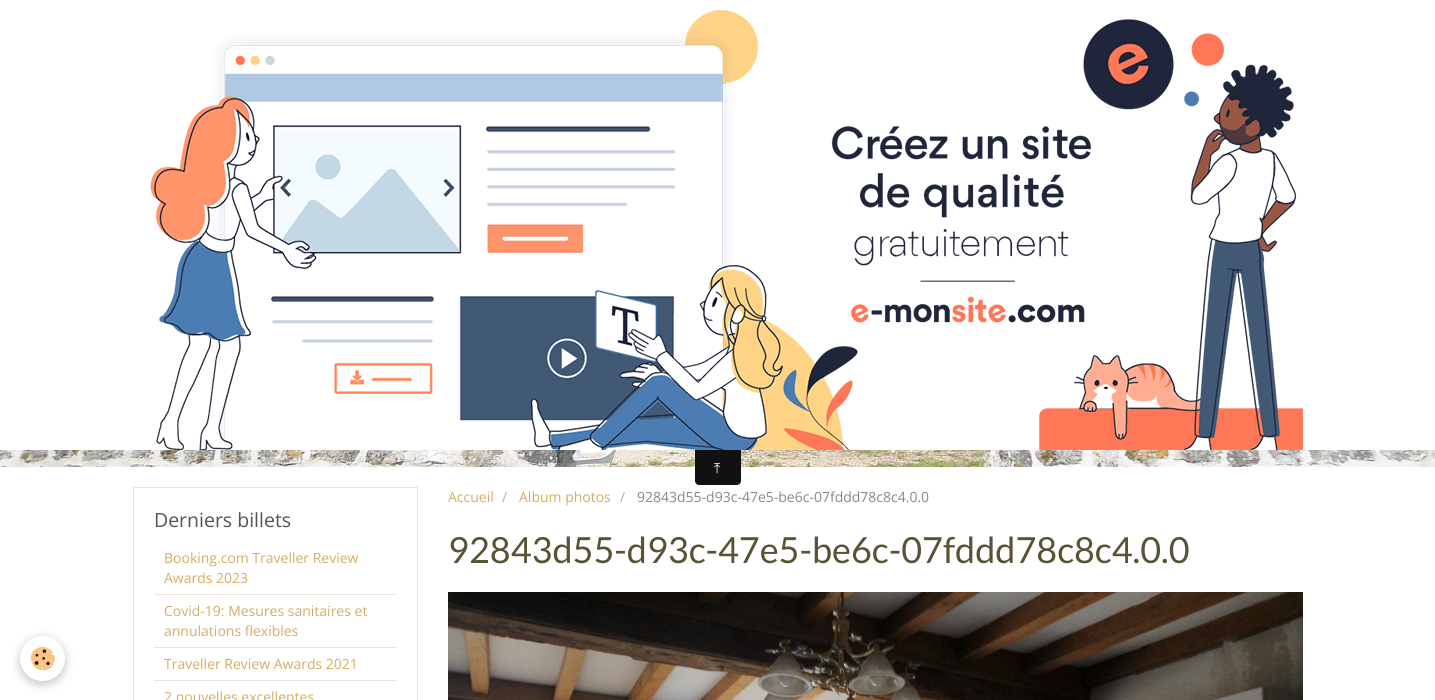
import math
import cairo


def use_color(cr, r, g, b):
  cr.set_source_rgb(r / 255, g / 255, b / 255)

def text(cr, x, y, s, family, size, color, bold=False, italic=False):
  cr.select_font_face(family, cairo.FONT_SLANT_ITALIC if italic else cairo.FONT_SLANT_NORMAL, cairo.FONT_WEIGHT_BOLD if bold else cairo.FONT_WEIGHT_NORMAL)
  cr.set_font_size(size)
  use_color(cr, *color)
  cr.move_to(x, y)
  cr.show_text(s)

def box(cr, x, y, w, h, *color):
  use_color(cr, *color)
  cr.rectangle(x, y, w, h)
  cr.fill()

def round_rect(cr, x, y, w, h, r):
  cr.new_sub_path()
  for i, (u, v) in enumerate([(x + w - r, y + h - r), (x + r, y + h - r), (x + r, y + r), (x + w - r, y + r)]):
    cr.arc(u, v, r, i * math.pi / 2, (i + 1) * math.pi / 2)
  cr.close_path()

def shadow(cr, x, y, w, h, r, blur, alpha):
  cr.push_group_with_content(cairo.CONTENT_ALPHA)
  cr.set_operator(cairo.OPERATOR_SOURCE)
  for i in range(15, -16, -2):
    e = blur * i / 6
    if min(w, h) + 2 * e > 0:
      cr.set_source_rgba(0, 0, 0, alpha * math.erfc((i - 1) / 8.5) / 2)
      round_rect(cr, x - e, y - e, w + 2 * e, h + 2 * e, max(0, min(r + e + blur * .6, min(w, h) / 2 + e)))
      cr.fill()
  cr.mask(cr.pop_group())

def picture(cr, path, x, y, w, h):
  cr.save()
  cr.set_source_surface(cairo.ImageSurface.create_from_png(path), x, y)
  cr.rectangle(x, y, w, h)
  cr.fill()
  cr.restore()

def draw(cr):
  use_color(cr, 255, 255, 255)
  cr.paint()
  picture(cr, "img_01.png", 0, 450, 1435, 17)
  picture(cr, "img_02.png", 150, 10, 1153, 440)
  use_color(cr, 17, 17, 17)
  cr.new_path()
  cr.move_to(695, 450)
  cr.line_to(741, 450)
  cr.line_to(741, 481)
  cr.curve_to(741, 483, 739, 485, 737, 485)
  cr.line_to(699, 485)
  cr.curve_to(697, 485, 695, 483, 695, 481)
  cr.close_path()
  cr.fill()
  use_color(cr, 0, 0, 0)
  shadow(cr, 20, 639, 45, 45, 22.5, 5, 0.24)
  use_color(cr, 255, 255, 255)
  cr.arc(42.5, 658.5, 22.5, 0, 2 * math.pi)
  cr.fill()
  picture(cr, "img_03.png", 30, 646, 25, 25)
  cr.rectangle(133.5, 487.5, 284, 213)
  use_color(cr, 233, 229, 217)
  cr.set_line_width(1)
  cr.stroke()
  box(cr, 154, 594, 243, 1, 233, 229, 217)
  box(cr, 154, 647, 243, 1, 233, 229, 217)
  box(cr, 154, 680, 243, 1, 233, 229, 217)
  picture(cr, "img_04.png", 448, 592, 855, 108)
  text(cr, 714, 473, "⤒", "FreeSerif", 14, (255, 255, 255))
  text(cr, 154, 527, "Derniers billets", "Open Sans", 19.5, (84, 82, 87))
  text(cr, 164, 563, "Booking.com Traveller Review", "Open Sans", 14, (214, 171, 100))
  text(cr, 164, 583, "Awards 2023", "Open Sans", 14, (214, 171, 100))
  text(cr, 164, 616, "Covid-19: Mesures sanitaires et", "Open Sans", 14, (214, 171, 100))
  text(cr, 164, 636, "annulations flexibles", "Open Sans", 14, (214, 171, 100))
  text(cr, 164, 669, "Traveller Review Awards 2021", "Open Sans", 14, (214, 171, 100))
  text(cr, 164, 702, "2 nouvelles excellentes", "Open Sans", 14, (214, 171, 100))
  text(cr, 448, 502, "Accueil", "Open Sans", 14, (214, 171, 100))
  text(cr, 502, 502, "/", "Open Sans", 14, (172, 172, 172))
  text(cr, 519, 502, "Album photos", "Open Sans", 14, (214, 171, 100))
  text(cr, 620, 502, "/", "Open Sans", 14, (172, 172, 172))
  text(cr, 637, 502, "92843d55-d93c-47e5-be6c-07fddd78c8c4.0.0", "Open Sans", 14, (136, 136, 136))
  text(cr, 448, 563, "92843d55-d93c-47e5-be6c-07fddd78c8c4.0.0", "Lato", 36, (89, 82, 53))


surface = cairo.ImageSurface(cairo.FORMAT_RGB24, 1435, 700)
cr = cairo.Context(surface)
options = cairo.FontOptions()
options.set_hint_metrics(cairo.HINT_METRICS_OFF)
options.set_hint_style(cairo.HINT_STYLE_NONE)
cr.set_font_options(options)
cr.set_miter_limit(4)
draw(cr)
surface.write_to_png("out.png")
